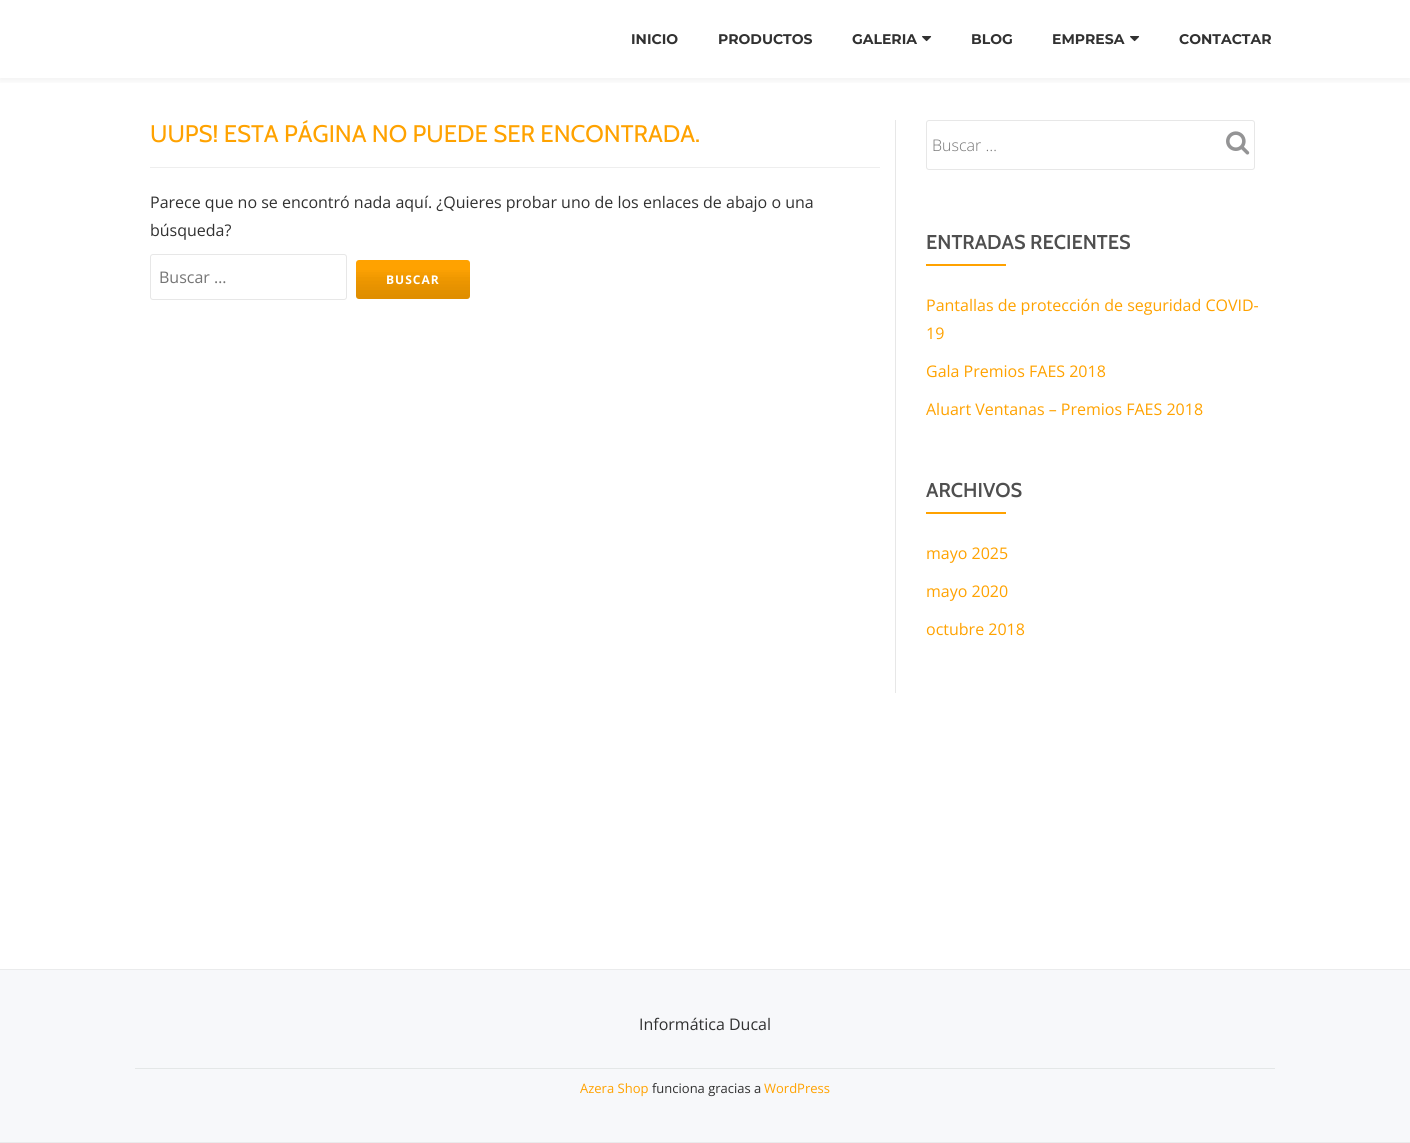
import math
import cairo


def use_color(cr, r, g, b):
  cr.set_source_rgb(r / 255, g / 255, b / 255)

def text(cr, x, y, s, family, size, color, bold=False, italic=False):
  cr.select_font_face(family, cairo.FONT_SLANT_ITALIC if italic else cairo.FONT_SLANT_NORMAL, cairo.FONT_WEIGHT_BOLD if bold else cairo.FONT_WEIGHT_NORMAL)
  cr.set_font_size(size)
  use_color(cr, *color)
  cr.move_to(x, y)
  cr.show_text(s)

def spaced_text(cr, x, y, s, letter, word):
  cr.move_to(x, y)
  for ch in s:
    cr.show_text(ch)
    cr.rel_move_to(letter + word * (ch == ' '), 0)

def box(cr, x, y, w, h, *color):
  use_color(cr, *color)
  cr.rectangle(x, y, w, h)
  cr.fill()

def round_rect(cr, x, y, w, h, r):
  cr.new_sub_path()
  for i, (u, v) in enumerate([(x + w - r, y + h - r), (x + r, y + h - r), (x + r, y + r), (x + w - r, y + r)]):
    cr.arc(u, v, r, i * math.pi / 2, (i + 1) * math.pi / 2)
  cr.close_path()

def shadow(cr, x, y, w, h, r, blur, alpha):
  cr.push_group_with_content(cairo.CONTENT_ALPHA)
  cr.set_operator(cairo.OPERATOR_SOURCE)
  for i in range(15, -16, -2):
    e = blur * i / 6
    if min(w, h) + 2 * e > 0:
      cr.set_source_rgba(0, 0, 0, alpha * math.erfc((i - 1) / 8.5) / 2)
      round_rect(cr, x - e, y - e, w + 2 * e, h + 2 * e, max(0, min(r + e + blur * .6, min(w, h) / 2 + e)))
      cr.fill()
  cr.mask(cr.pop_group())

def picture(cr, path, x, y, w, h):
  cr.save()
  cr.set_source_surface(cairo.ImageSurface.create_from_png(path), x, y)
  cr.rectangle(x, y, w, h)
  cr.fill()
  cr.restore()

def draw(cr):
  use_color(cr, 255, 255, 255)
  cr.paint()
  cr.save()
  cr.rectangle(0, 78, 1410, 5)
  cr.clip()
  use_color(cr, 50, 50, 50)
  shadow(cr, 0, 2, 1410, 78, 0, 4, 0.08)
  cr.restore()
  picture(cr, "img_01.png", 922, 36, 10, 6)
  picture(cr, "img_01.png", 1130, 36, 10, 6)
  box(cr, 150, 167, 730, 1, 238, 238, 238)
  round_rect(cr, 150.5, 254.5, 196, 45, 2.5)
  use_color(cr, 231, 231, 231)
  cr.set_line_width(1)
  cr.stroke()
  use_color(cr, 255, 162, 0)
  round_rect(cr, 356, 260, 114, 39, 3)
  cr.fill()
  picture(cr, "img_02.png", 356, 270, 114, 29)
  box(cr, 895, 120, 1, 573, 231, 231, 231)
  round_rect(cr, 926.5, 120.5, 328, 49, 2.5)
  cr.stroke()
  picture(cr, "img_03.png", 1226, 131, 24, 24)
  box(cr, 926, 264, 80, 2, 255, 162, 0)
  box(cr, 926, 512, 80, 2, 255, 162, 0)
  box(cr, 0, 970, 1410, 172, 247, 248, 250)
  box(cr, 0, 969, 1410, 1, 234, 235, 236)
  box(cr, 0, 1142, 1410, 1, 234, 235, 236)
  box(cr, 135, 1068, 1140, 1, 228, 231, 231)
  text(cr, 631, 44, "INICIO", "Montserrat", 14, (49, 49, 49), bold=True)
  text(cr, 718, 44, "PRODUCTOS", "Montserrat", 14, (49, 49, 49), bold=True)
  text(cr, 852, 44, "GALERIA", "Montserrat", 14, (49, 49, 49), bold=True)
  text(cr, 971, 44, "BLOG", "Montserrat", 14, (49, 49, 49), bold=True)
  text(cr, 1052, 44, "EMPRESA", "Montserrat", 14, (49, 49, 49), bold=True)
  text(cr, 1179, 44, "CONTACTAR", "Montserrat", 14, (49, 49, 49), bold=True)
  text(cr, 150, 142, "UUPS! ESTA PÁGINA NO PUEDE SER ENCONTRADA.", "Cabin", 24, (255, 162, 0))
  text(cr, 150, 208, "Parece que no se encontró nada aquí. ¿Quieres probar uno de los enlaces de abajo o una", "Open Sans", 16, (49, 49, 49))
  text(cr, 150, 236, "búsqueda?", "Open Sans", 16, (49, 49, 49))
  text(cr, 159, 283, "Buscar …", "Open Sans", 16, (117, 117, 117))
  cr.select_font_face("Open Sans", cairo.FONT_SLANT_NORMAL, cairo.FONT_WEIGHT_BOLD)
  cr.set_font_size(12)
  use_color(cr, 255, 255, 255)
  spaced_text(cr, 386, 284, "BUSCAR", 1, 0)
  text(cr, 932, 151, "Buscar …", "Open Sans Light", 16, (117, 117, 117))
  text(cr, 926, 249, "ENTRADAS RECIENTES", "Cabin SemiBold", 20, (79, 79, 79))
  text(cr, 926, 311, "Pantallas de protección de seguridad COVID-", "Open Sans", 16, (255, 162, 0))
  text(cr, 926, 339, "19", "Open Sans", 16, (255, 162, 0))
  text(cr, 926, 377, "Gala Premios FAES 2018", "Open Sans", 16, (255, 162, 0))
  text(cr, 926, 415, "Aluart Ventanas – Premios FAES 2018", "Open Sans", 16, (255, 162, 0))
  text(cr, 926, 497, "ARCHIVOS", "Cabin SemiBold", 20, (79, 79, 79))
  text(cr, 926, 559, "mayo 2025", "Open Sans", 16, (255, 162, 0))
  text(cr, 926, 597, "mayo 2020", "Open Sans", 16, (255, 162, 0))
  text(cr, 926, 635, "octubre 2018", "Open Sans", 16, (255, 162, 0))
  text(cr, 639, 1030, "Informática Ducal", "Open Sans", 16, (49, 49, 49))
  text(cr, 580, 1093, "Azera Shop", "Open Sans", 13, (255, 162, 0))
  text(cr, 652, 1093, "funciona gracias a", "Open Sans", 13, (49, 49, 49))
  text(cr, 764, 1093, "WordPress", "Open Sans", 13, (255, 162, 0))


surface = cairo.ImageSurface(cairo.FORMAT_RGB24, 1410, 1143)
cr = cairo.Context(surface)
options = cairo.FontOptions()
options.set_hint_metrics(cairo.HINT_METRICS_OFF)
options.set_hint_style(cairo.HINT_STYLE_NONE)
cr.set_font_options(options)
cr.set_miter_limit(4)
draw(cr)
surface.write_to_png("out.png")
